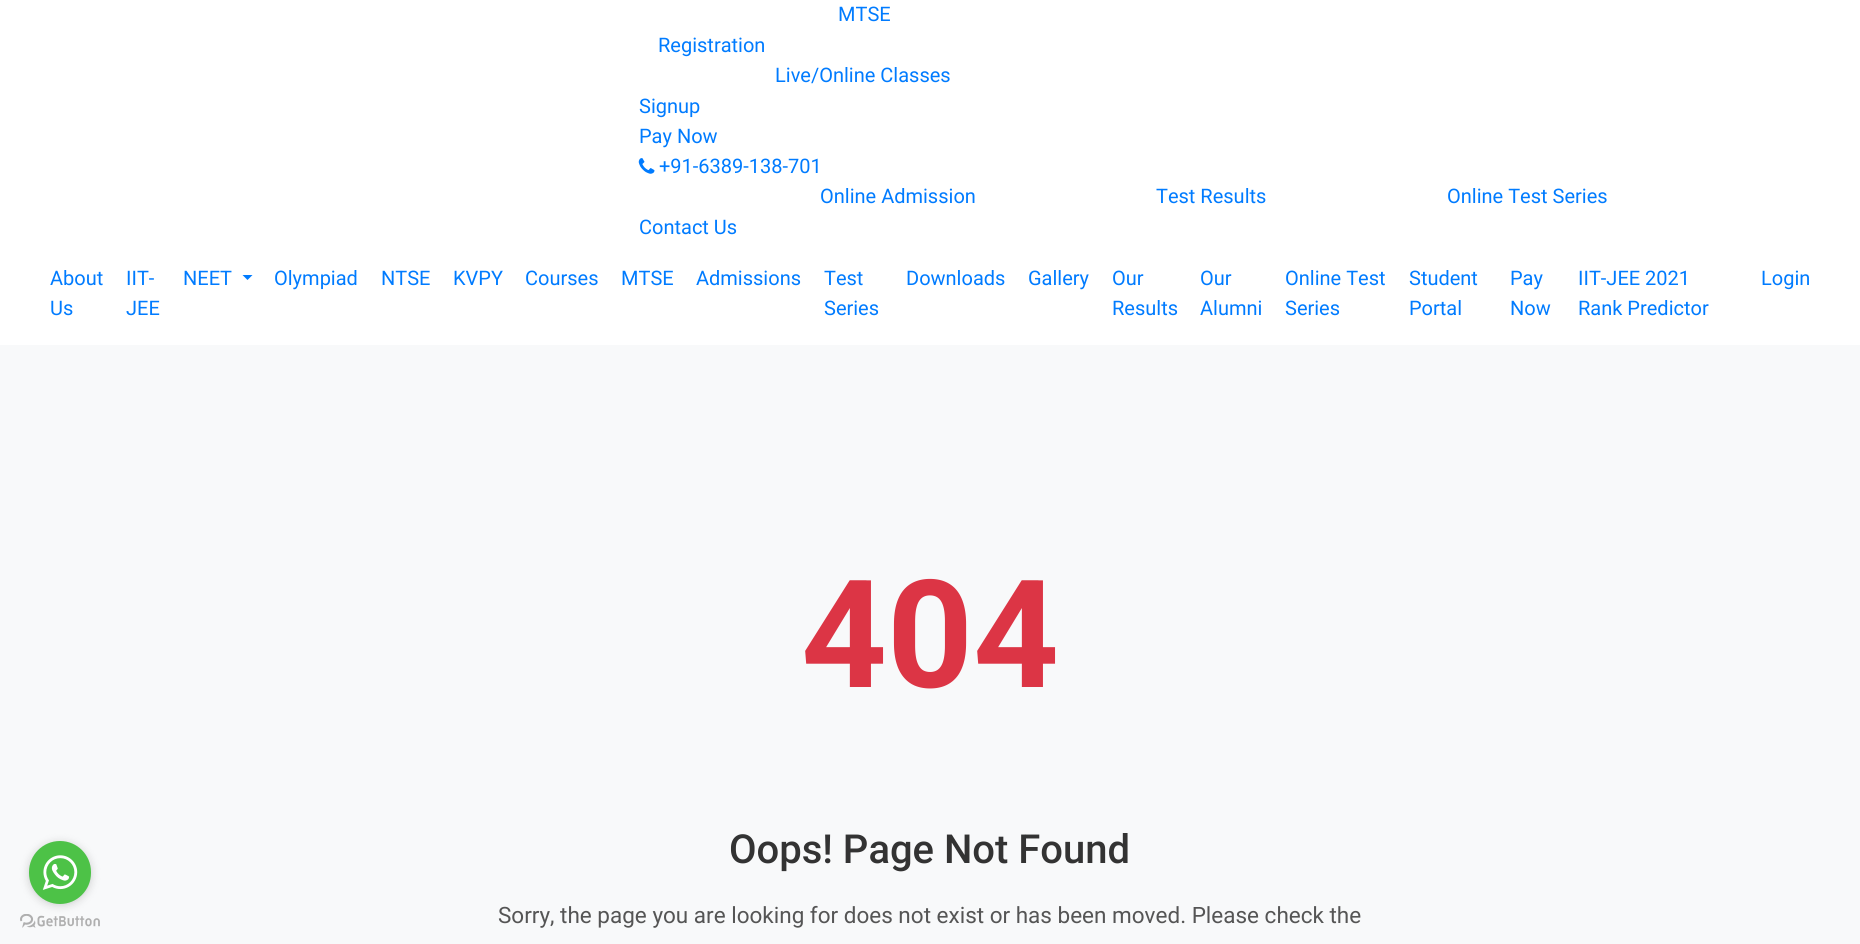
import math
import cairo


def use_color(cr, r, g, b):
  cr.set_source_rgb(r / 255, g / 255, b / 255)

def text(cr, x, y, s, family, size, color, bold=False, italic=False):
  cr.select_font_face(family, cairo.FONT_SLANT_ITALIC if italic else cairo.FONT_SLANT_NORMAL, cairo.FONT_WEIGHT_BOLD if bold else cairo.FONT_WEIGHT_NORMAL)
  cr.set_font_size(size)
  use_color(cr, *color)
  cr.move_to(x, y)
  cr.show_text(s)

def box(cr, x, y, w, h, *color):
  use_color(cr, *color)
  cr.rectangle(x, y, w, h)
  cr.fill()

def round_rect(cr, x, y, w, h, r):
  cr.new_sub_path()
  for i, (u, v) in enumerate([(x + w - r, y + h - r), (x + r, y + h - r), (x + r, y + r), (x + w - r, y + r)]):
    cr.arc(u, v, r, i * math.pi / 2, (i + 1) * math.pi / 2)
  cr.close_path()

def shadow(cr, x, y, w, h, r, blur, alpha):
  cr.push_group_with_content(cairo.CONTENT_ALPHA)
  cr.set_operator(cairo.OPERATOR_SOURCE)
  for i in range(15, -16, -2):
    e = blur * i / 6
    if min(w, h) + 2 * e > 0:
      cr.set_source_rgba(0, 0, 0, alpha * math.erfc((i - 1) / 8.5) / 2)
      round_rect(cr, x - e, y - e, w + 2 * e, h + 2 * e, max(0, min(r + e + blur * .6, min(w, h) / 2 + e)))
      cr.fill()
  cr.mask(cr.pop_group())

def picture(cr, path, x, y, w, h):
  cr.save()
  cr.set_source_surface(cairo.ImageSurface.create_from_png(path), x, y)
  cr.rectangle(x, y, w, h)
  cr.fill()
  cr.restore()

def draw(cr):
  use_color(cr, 255, 255, 255)
  cr.paint()
  picture(cr, "img_01.png", 638, 158, 17, 16)
  use_color(cr, 0, 123, 255)
  cr.new_path()
  cr.move_to(242.5, 275)
  cr.line_to(252.5, 275)
  cr.line_to(247.5, 280)
  cr.close_path()
  cr.fill()
  box(cr, 0, 345, 1860, 599, 248, 249, 250)
  picture(cr, "img_03.png", 20, 914, 80, 14)
  use_color(cr, 136, 136, 136)
  shadow(cr, 29, 843, 62, 62, 31, 4.5, 0.4)
  use_color(cr, 77, 194, 71)
  round_rect(cr, 29, 841, 62, 63, 31)
  cr.fill()
  picture(cr, "img_02.png", 42, 855, 36, 35)
  text(cr, 838, 21, "MTSE", "Roboto", 20, (0, 123, 255))
  text(cr, 658, 52, "Registration", "Roboto", 20, (0, 123, 255))
  text(cr, 775, 82, "Live/Online Classes", "Roboto", 20, (0, 123, 255))
  text(cr, 639, 113, "Signup", "Roboto", 20, (0, 123, 255))
  text(cr, 639, 143, "Pay Now", "Roboto", 20, (0, 123, 255))
  text(cr, 659, 173, "+91-6389-138-701", "Roboto", 20, (0, 123, 255))
  text(cr, 820, 203, "Online Admission", "Roboto", 20, (0, 123, 255))
  text(cr, 1156, 203, "Test Results", "Roboto", 20, (0, 123, 255))
  text(cr, 1447, 203, "Online Test Series", "Roboto", 20, (0, 123, 255))
  text(cr, 639, 234, "Contact Us", "Roboto", 20, (0, 123, 255))
  text(cr, 50, 285, "About", "Roboto", 20, (0, 123, 255))
  text(cr, 50, 315, "Us", "Roboto", 20, (0, 123, 255))
  text(cr, 126, 285, "IIT-", "Roboto", 20, (0, 123, 255))
  text(cr, 126, 315, "JEE", "Roboto", 20, (0, 123, 255))
  text(cr, 183, 285, "NEET", "Roboto", 20, (0, 123, 255))
  text(cr, 274, 285, "Olympiad", "Roboto", 20, (0, 123, 255))
  text(cr, 381, 285, "NTSE", "Roboto", 20, (0, 123, 255))
  text(cr, 453, 285, "KVPY", "Roboto", 20, (0, 123, 255))
  text(cr, 525, 285, "Courses", "Roboto", 20, (0, 123, 255))
  text(cr, 621, 285, "MTSE", "Roboto", 20, (0, 123, 255))
  text(cr, 696, 285, "Admissions", "Roboto", 20, (0, 123, 255))
  text(cr, 824, 285, "Test", "Roboto", 20, (0, 123, 255))
  text(cr, 824, 315, "Series", "Roboto", 20, (0, 123, 255))
  text(cr, 906, 285, "Downloads", "Roboto", 20, (0, 123, 255))
  text(cr, 1028, 285, "Gallery", "Roboto", 20, (0, 123, 255))
  text(cr, 1112, 285, "Our", "Roboto", 20, (0, 123, 255))
  text(cr, 1112, 315, "Results", "Roboto", 20, (0, 123, 255))
  text(cr, 1200, 285, "Our", "Roboto", 20, (0, 123, 255))
  text(cr, 1200, 315, "Alumni", "Roboto", 20, (0, 123, 255))
  text(cr, 1285, 285, "Online Test", "Roboto", 20, (0, 123, 255))
  text(cr, 1285, 315, "Series", "Roboto", 20, (0, 123, 255))
  text(cr, 1409, 285, "Student", "Roboto", 20, (0, 123, 255))
  text(cr, 1409, 315, "Portal", "Roboto", 20, (0, 123, 255))
  text(cr, 1510, 285, "Pay", "Roboto", 20, (0, 123, 255))
  text(cr, 1510, 315, "Now", "Roboto", 20, (0, 123, 255))
  text(cr, 1578, 285, "IIT-JEE 2021", "Roboto", 20, (0, 123, 255))
  text(cr, 1578, 315, "Rank Predictor", "Roboto", 20, (0, 123, 255))
  text(cr, 1761, 285, "Login", "Roboto", 20, (0, 123, 255))
  text(cr, 801, 687, "404", "Roboto", 150, (220, 53, 69), bold=True)
  text(cr, 729, 863, "Oops! Page Not Found", "Roboto Medium", 40, (51, 51, 51))
  text(cr, 498, 923, "Sorry, the page you are looking for does not exist or has been moved. Please check the", "Roboto", 22.5, (85, 85, 85))


surface = cairo.ImageSurface(cairo.FORMAT_RGB24, 1860, 944)
cr = cairo.Context(surface)
options = cairo.FontOptions()
options.set_hint_metrics(cairo.HINT_METRICS_OFF)
options.set_hint_style(cairo.HINT_STYLE_NONE)
cr.set_font_options(options)
cr.set_miter_limit(4)
draw(cr)
surface.write_to_png("out.png")
